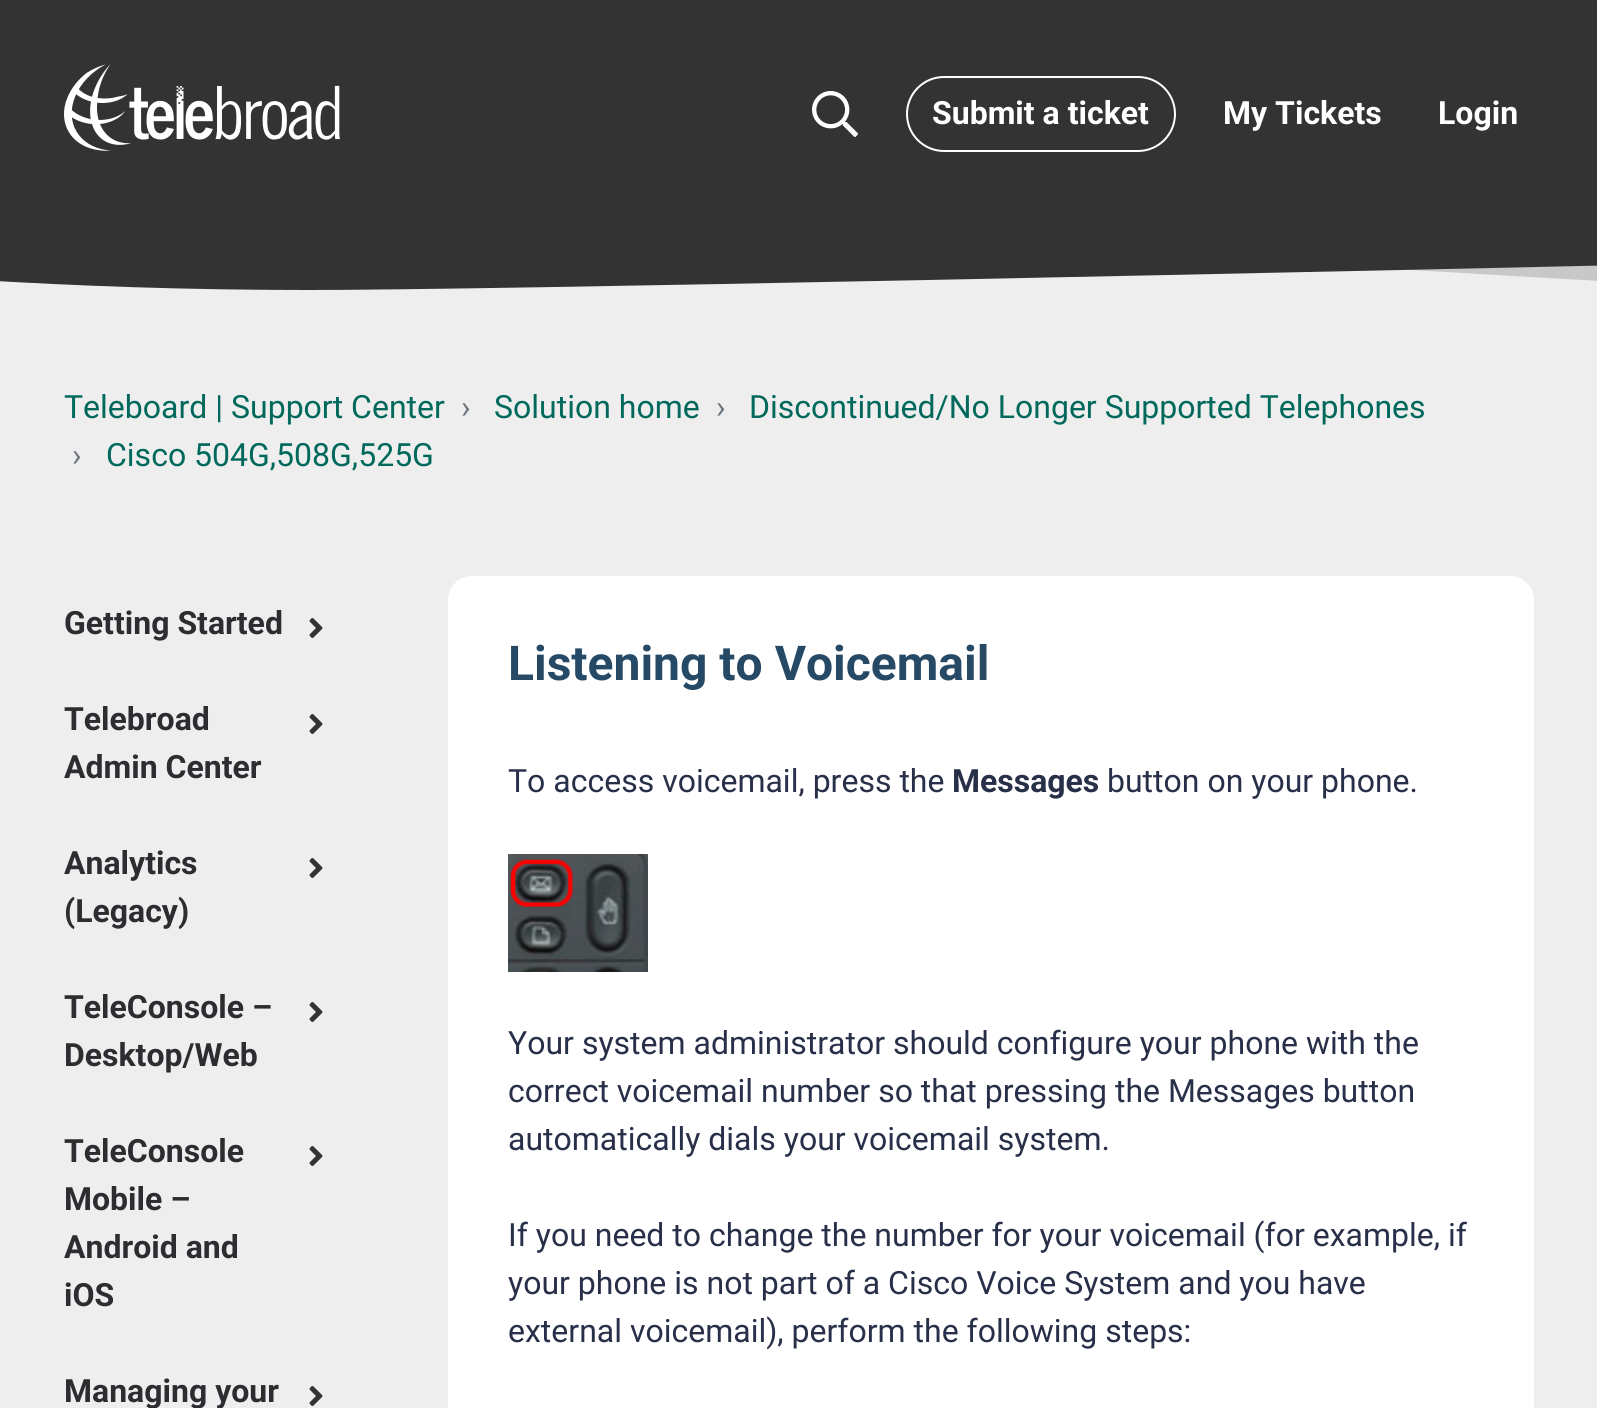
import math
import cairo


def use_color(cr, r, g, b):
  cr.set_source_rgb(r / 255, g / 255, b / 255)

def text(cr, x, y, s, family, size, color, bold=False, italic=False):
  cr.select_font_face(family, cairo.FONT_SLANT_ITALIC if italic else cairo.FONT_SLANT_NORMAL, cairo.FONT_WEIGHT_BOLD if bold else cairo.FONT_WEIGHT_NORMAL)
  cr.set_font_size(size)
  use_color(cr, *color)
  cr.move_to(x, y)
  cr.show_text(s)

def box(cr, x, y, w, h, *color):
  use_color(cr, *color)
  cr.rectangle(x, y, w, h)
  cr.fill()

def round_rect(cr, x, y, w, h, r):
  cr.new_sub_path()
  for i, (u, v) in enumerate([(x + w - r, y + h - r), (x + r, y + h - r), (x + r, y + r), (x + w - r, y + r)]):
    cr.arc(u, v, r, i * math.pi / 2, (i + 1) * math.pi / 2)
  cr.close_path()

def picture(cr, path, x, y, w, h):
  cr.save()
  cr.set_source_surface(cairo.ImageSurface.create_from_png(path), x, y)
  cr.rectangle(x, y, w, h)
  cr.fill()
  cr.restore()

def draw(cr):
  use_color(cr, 238, 238, 238)
  cr.paint()
  box(cr, 0, 0, 1597, 226, 51, 51, 51)
  picture(cr, "img_01.png", 64, 64, 276, 87)
  picture(cr, "img_02.png", 812, 91, 46, 46)
  round_rect(cr, 907, 77, 268, 74, 37)
  use_color(cr, 255, 255, 255)
  cr.stroke()
  use_color(cr, 51, 51, 51)
  cr.new_path()
  cr.move_to(308, 290)
  cr.curve_to(666, 290, 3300, 226, 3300, 226)
  cr.line_to(-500, 226)
  cr.curve_to(-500, 226, -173, 290, 308, 290)
  cr.close_path()
  cr.fill()
  cr.save()
  cr.rectangle(0, 226, 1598, 94)
  cr.clip()
  cr.set_source_rgba(0.2, 0.2, 0.2, 0.2)
  cr.new_path()
  cr.move_to(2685, 320)
  cr.curve_to(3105, 320, 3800, 168, 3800, 168)
  cr.line_to(0, 168)
  cr.curve_to(0, 168, 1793, 320, 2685, 320)
  cr.close_path()
  cr.fill()
  cr.restore()
  picture(cr, "img_03.png", 309, 618, 14, 20)
  picture(cr, "img_03.png", 309, 714, 14, 20)
  picture(cr, "img_03.png", 309, 858, 14, 20)
  picture(cr, "img_03.png", 309, 1002, 14, 20)
  picture(cr, "img_03.png", 309, 1146, 14, 20)
  picture(cr, "img_03.png", 309, 1386, 14, 20)
  use_color(cr, 255, 255, 255)
  round_rect(cr, 448, 576, 1086, 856, 24)
  cr.fill()
  picture(cr, "img_04.png", 508, 854, 140, 118)
  text(cr, 932, 124, "Submit a ticket", "Roboto", 32, (255, 255, 255), bold=True)
  text(cr, 1223, 124, "My Tickets", "Roboto", 32, (255, 255, 255), bold=True)
  text(cr, 1438, 124, "Login", "Roboto", 32, (255, 255, 255), bold=True)
  text(cr, 64, 418, "Teleboard | Support Center", "Roboto", 32, (0, 105, 92))
  text(cr, 461, 418, "›", "Roboto", 32, (108, 117, 125))
  text(cr, 494, 418, "Solution home", "Roboto", 32, (0, 105, 92))
  text(cr, 716, 418, "›", "Roboto", 32, (108, 117, 125))
  text(cr, 749, 418, "Discontinued/No Longer Supported Telephones", "Roboto", 32, (0, 105, 92))
  text(cr, 72, 466, "›", "Roboto", 32, (108, 117, 125))
  text(cr, 106, 466, "Cisco 504G,508G,525G", "Roboto", 32, (0, 105, 92))
  text(cr, 64, 634, "Getting Started", "Roboto", 32, (44, 45, 48), bold=True)
  text(cr, 64, 730, "Telebroad", "Roboto", 32, (44, 45, 48), bold=True)
  text(cr, 64, 778, "Admin Center", "Roboto", 32, (44, 45, 48), bold=True)
  text(cr, 64, 874, "Analytics", "Roboto", 32, (44, 45, 48), bold=True)
  text(cr, 64, 922, "(Legacy)", "Roboto", 32, (44, 45, 48), bold=True)
  text(cr, 64, 1018, "TeleConsole –", "Roboto", 32, (44, 45, 48), bold=True)
  text(cr, 64, 1066, "Desktop/Web", "Roboto", 32, (44, 45, 48), bold=True)
  text(cr, 64, 1162, "TeleConsole", "Roboto", 32, (44, 45, 48), bold=True)
  text(cr, 64, 1210, "Mobile –", "Roboto", 32, (44, 45, 48), bold=True)
  text(cr, 64, 1258, "Android and", "Roboto", 32, (44, 45, 48), bold=True)
  text(cr, 64, 1306, "iOS", "Roboto", 32, (44, 45, 48), bold=True)
  text(cr, 64, 1402, "Managing your", "Roboto", 32, (44, 45, 48), bold=True)
  text(cr, 508, 680, "Listening to Voicemail", "Roboto", 48, (38, 73, 102), bold=True)
  text(cr, 508, 792, "To access voicemail, press the", "Roboto", 32, (40, 47, 72))
  text(cr, 952, 792, "Messages", "Roboto", 32, (40, 47, 72), bold=True)
  text(cr, 1107, 792, "button on your phone.", "Roboto", 32, (40, 47, 72))
  text(cr, 508, 1054, "Your system administrator should configure your phone with the", "Roboto", 32, (40, 47, 72))
  text(cr, 508, 1102, "correct voicemail number so that pressing the Messages button", "Roboto", 32, (40, 47, 72))
  text(cr, 508, 1150, "automatically dials your voicemail system.", "Roboto", 32, (40, 47, 72))
  text(cr, 508, 1246, "If you need to change the number for your voicemail (for example, if", "Roboto", 32, (40, 47, 72))
  text(cr, 508, 1294, "your phone is not part of a Cisco Voice System and you have", "Roboto", 32, (40, 47, 72))
  text(cr, 508, 1342, "external voicemail), perform the following steps:", "Roboto", 32, (40, 47, 72))


surface = cairo.ImageSurface(cairo.FORMAT_RGB24, 1597, 1408)
cr = cairo.Context(surface)
options = cairo.FontOptions()
options.set_hint_metrics(cairo.HINT_METRICS_OFF)
options.set_hint_style(cairo.HINT_STYLE_NONE)
cr.set_font_options(options)
cr.set_miter_limit(4)
draw(cr)
surface.write_to_png("out.png")
